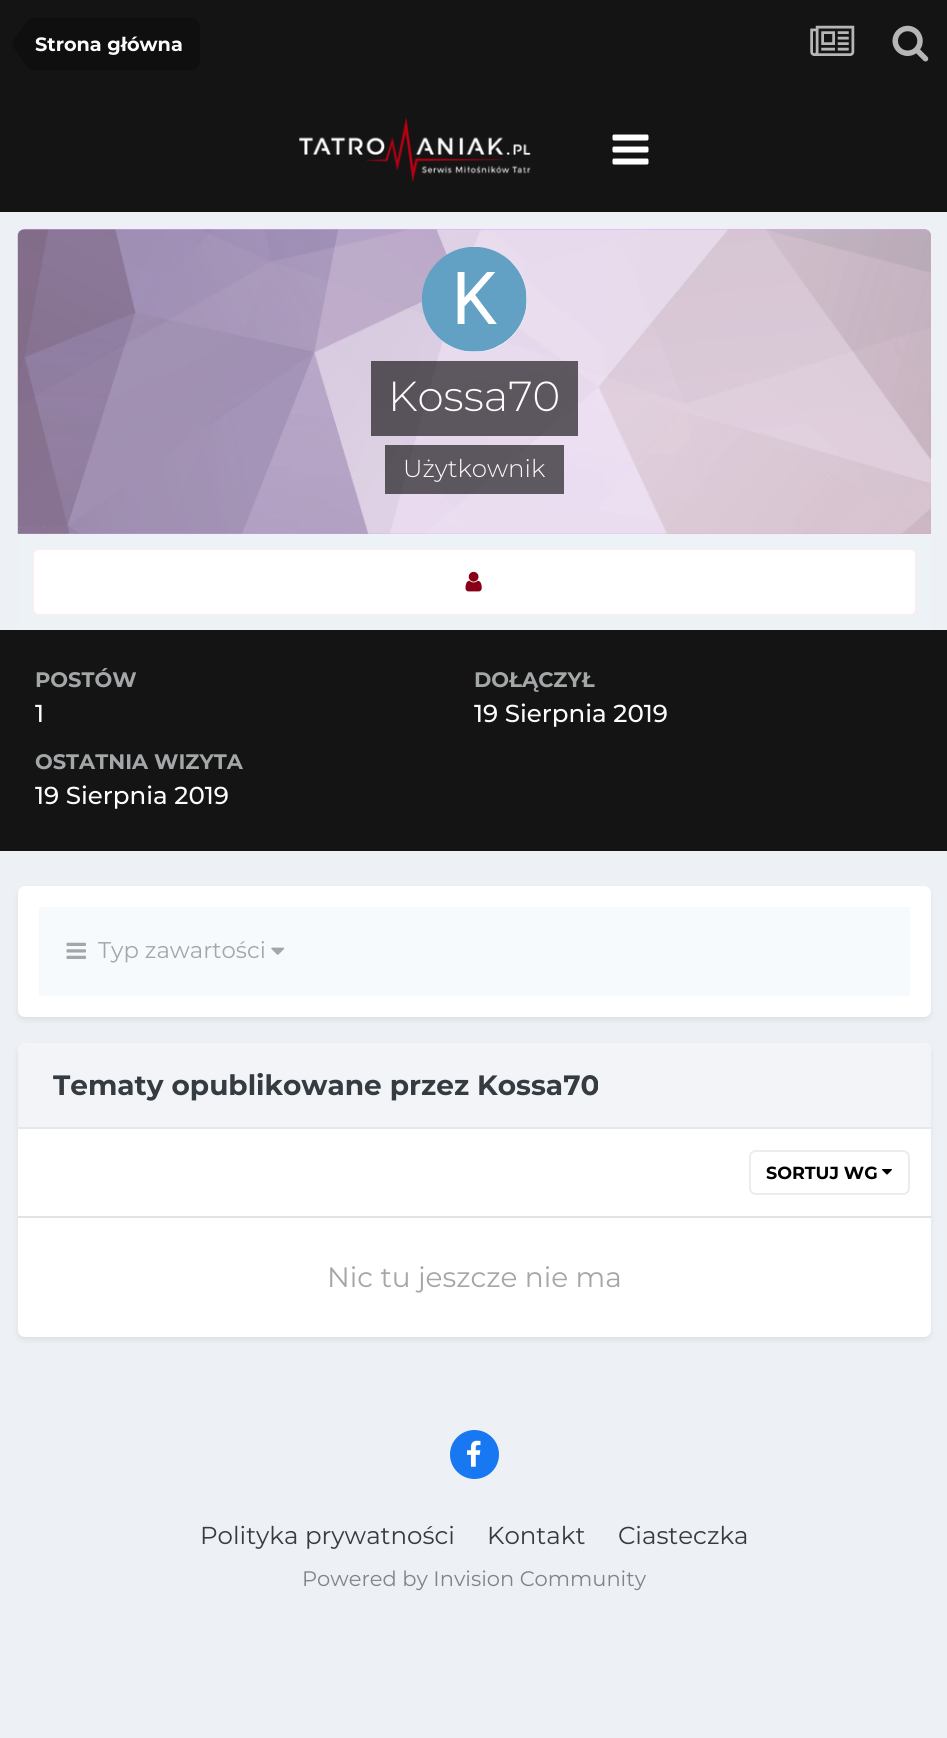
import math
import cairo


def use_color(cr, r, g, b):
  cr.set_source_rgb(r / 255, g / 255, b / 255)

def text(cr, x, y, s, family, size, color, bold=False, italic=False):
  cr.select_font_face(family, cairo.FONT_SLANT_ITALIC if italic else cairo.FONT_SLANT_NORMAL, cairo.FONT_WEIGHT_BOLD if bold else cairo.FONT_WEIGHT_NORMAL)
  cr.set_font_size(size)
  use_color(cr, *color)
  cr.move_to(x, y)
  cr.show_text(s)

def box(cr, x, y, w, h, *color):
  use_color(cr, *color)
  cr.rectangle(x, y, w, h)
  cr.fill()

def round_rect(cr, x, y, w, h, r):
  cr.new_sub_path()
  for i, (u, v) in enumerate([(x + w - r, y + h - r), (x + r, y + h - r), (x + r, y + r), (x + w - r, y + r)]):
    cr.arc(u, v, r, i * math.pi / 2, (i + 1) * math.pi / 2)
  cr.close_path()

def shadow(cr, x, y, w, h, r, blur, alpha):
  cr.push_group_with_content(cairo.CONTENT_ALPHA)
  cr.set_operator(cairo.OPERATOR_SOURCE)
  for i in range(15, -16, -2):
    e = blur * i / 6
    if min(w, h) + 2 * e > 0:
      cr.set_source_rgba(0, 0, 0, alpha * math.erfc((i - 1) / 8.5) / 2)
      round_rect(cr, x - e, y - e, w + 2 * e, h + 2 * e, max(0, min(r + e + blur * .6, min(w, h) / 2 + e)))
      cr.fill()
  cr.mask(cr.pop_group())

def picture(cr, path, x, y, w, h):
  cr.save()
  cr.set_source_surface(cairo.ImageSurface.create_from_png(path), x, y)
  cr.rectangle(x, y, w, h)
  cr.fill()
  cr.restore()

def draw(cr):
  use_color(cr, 237, 240, 244)
  cr.paint()
  box(cr, 0, 0, 947, 212, 20, 20, 20)
  picture(cr, "img_01.png", 299, 117, 232, 65)
  picture(cr, "img_02.png", 612, 134, 37, 31)
  use_color(cr, 15, 15, 15)
  cr.new_path()
  cr.move_to(35, 18)
  cr.line_to(191, 18)
  cr.curve_to(196, 18, 200, 22, 200, 27)
  cr.line_to(200, 61)
  cr.curve_to(200, 66, 196, 70, 191, 70)
  cr.line_to(35, 70)
  cr.close_path()
  cr.fill()
  cr.new_path()
  cr.move_to(13, 47)
  cr.line_to(12.5, 44)
  cr.line_to(35, 44)
  cr.line_to(35, 70)
  cr.curve_to(27.5, 70, 24, 62.5, 20.5, 57.5)
  cr.close_path()
  cr.move_to(35, 18)
  cr.line_to(35, 44)
  cr.line_to(12.5, 44)
  cr.line_to(12.5, 41)
  cr.line_to(25, 24)
  cr.curve_to(27.5, 20, 31, 18, 35, 18)
  cr.close_path()
  cr.fill()
  picture(cr, "img_03.png", 810, 25, 45, 31)
  picture(cr, "img_04.png", 892, 25, 37, 37)
  use_color(cr, 231, 153, 255)
  cr.new_path()
  cr.move_to(25, 229)
  cr.line_to(924, 229)
  cr.curve_to(928, 229, 931, 232, 931, 236)
  cr.line_to(931, 534)
  cr.line_to(18, 534)
  cr.line_to(18, 236)
  cr.curve_to(18, 232, 21, 229, 25, 229)
  cr.close_path()
  cr.fill()
  picture(cr, "img_05.png", 17, 229, 914, 305)
  use_color(cr, 255, 255, 255)
  cr.arc(474.5, 299.5, 52.5, 0, 2 * math.pi)
  cr.fill()
  picture(cr, "img_06.png", 422, 247, 105, 105)
  cr.set_source_rgba(0, 0, 0, 0.6)
  cr.rectangle(371, 361, 207, 75)
  cr.fill()
  cr.rectangle(385, 445, 179, 49)
  cr.fill()
  box(cr, 18, 534, 913, 96, 237, 242, 247)
  use_color(cr, 255, 255, 255)
  round_rect(cr, 32, 548, 885, 68, 7)
  cr.fill()
  round_rect(cr, 33, 549, 883, 66, 6)
  cr.set_source_rgba(0.529, 0, 0.082, 0.07)
  cr.stroke()
  picture(cr, "img_07.png", 465, 571, 17, 21)
  box(cr, 0, 630, 947, 221, 20, 20, 20)
  use_color(cr, 20, 20, 20)
  shadow(cr, 19, 891, 910, 128, 5, 3.5, 0.1)
  use_color(cr, 255, 255, 255)
  round_rect(cr, 18, 886, 913, 131, 7)
  cr.fill()
  box(cr, 39, 907, 871, 89, 247, 250, 252)
  picture(cr, "img_08.png", 66, 942, 20, 17)
  picture(cr, "img_09.png", 271, 947, 14, 8)
  use_color(cr, 20, 20, 20)
  shadow(cr, 19, 1048, 910, 291, 5, 3.5, 0.1)
  use_color(cr, 255, 255, 255)
  round_rect(cr, 18, 1043, 913, 294, 7)
  cr.fill()
  use_color(cr, 242, 244, 247)
  cr.new_path()
  cr.move_to(25, 1043)
  cr.line_to(924, 1043)
  cr.curve_to(928, 1043, 931, 1046, 931, 1050)
  cr.line_to(931, 1129)
  cr.line_to(18, 1129)
  cr.line_to(18, 1050)
  cr.curve_to(18, 1046, 21, 1043, 25, 1043)
  cr.close_path()
  cr.fill()
  box(cr, 18, 1127, 913, 2, 230, 232, 235)
  box(cr, 18, 1216, 913, 2, 225, 226, 227)
  picture(cr, "img_10.png", 882, 1169, 10, 6)
  round_rect(cr, 750, 1151, 159, 43, 6)
  use_color(cr, 235, 236, 236)
  cr.stroke()
  use_color(cr, 23, 120, 242)
  cr.arc(474.5, 1454.5, 24.5, 0, 2 * math.pi)
  cr.fill()
  picture(cr, "img_11.png", 467, 1440, 14, 27)
  text(cr, 35, 51, "Strona główna", "Montserrat", 19.25, (252, 252, 252), bold=True)
  text(cr, 388, 411, "Kossa70", "Montserrat Light", 42, (252, 252, 252))
  text(cr, 403, 477, "Użytkownik", "Montserrat Light", 24.5, (252, 252, 252))
  text(cr, 35, 687, "POSTÓW", "Montserrat", 21, (163, 167, 168), bold=True)
  text(cr, 35, 722, "1", "Montserrat Medium", 24.5, (252, 252, 252))
  text(cr, 474, 687, "DOŁĄCZYŁ", "Montserrat", 21, (163, 167, 168), bold=True)
  text(cr, 474, 722, "19 Sierpnia 2019", "Montserrat Medium", 24.5, (252, 252, 252))
  text(cr, 35, 769, "OSTATNIA WIZYTA", "Montserrat", 21, (163, 167, 168), bold=True)
  text(cr, 35, 804, "19 Sierpnia 2019", "Montserrat Medium", 24.5, (252, 252, 252))
  text(cr, 98, 958, "Typ zawartości", "Montserrat", 22.75, (163, 167, 168))
  text(cr, 53, 1095, "Tematy opublikowane przez Kossa70", "Montserrat", 28, (53, 60, 65), bold=True)
  text(cr, 766, 1179, "SORTUJ WG", "Montserrat", 17.5, (0, 0, 0), bold=True)
  text(cr, 327, 1287, "Nic tu jeszcze nie ma", "Montserrat", 28, (163, 167, 168))
  text(cr, 200, 1544, "Polityka prywatności", "Montserrat", 24.5, (53, 60, 65))
  text(cr, 487, 1544, "Kontakt", "Montserrat", 24.5, (53, 60, 65))
  text(cr, 618, 1544, "Ciasteczka", "Montserrat", 24.5, (53, 60, 65))
  text(cr, 302, 1586, "Powered by Invision Community", "Montserrat", 21, (127, 132, 137))


surface = cairo.ImageSurface(cairo.FORMAT_RGB24, 947, 1738)
cr = cairo.Context(surface)
options = cairo.FontOptions()
options.set_hint_metrics(cairo.HINT_METRICS_OFF)
options.set_hint_style(cairo.HINT_STYLE_NONE)
cr.set_font_options(options)
cr.set_miter_limit(4)
draw(cr)
surface.write_to_png("out.png")
